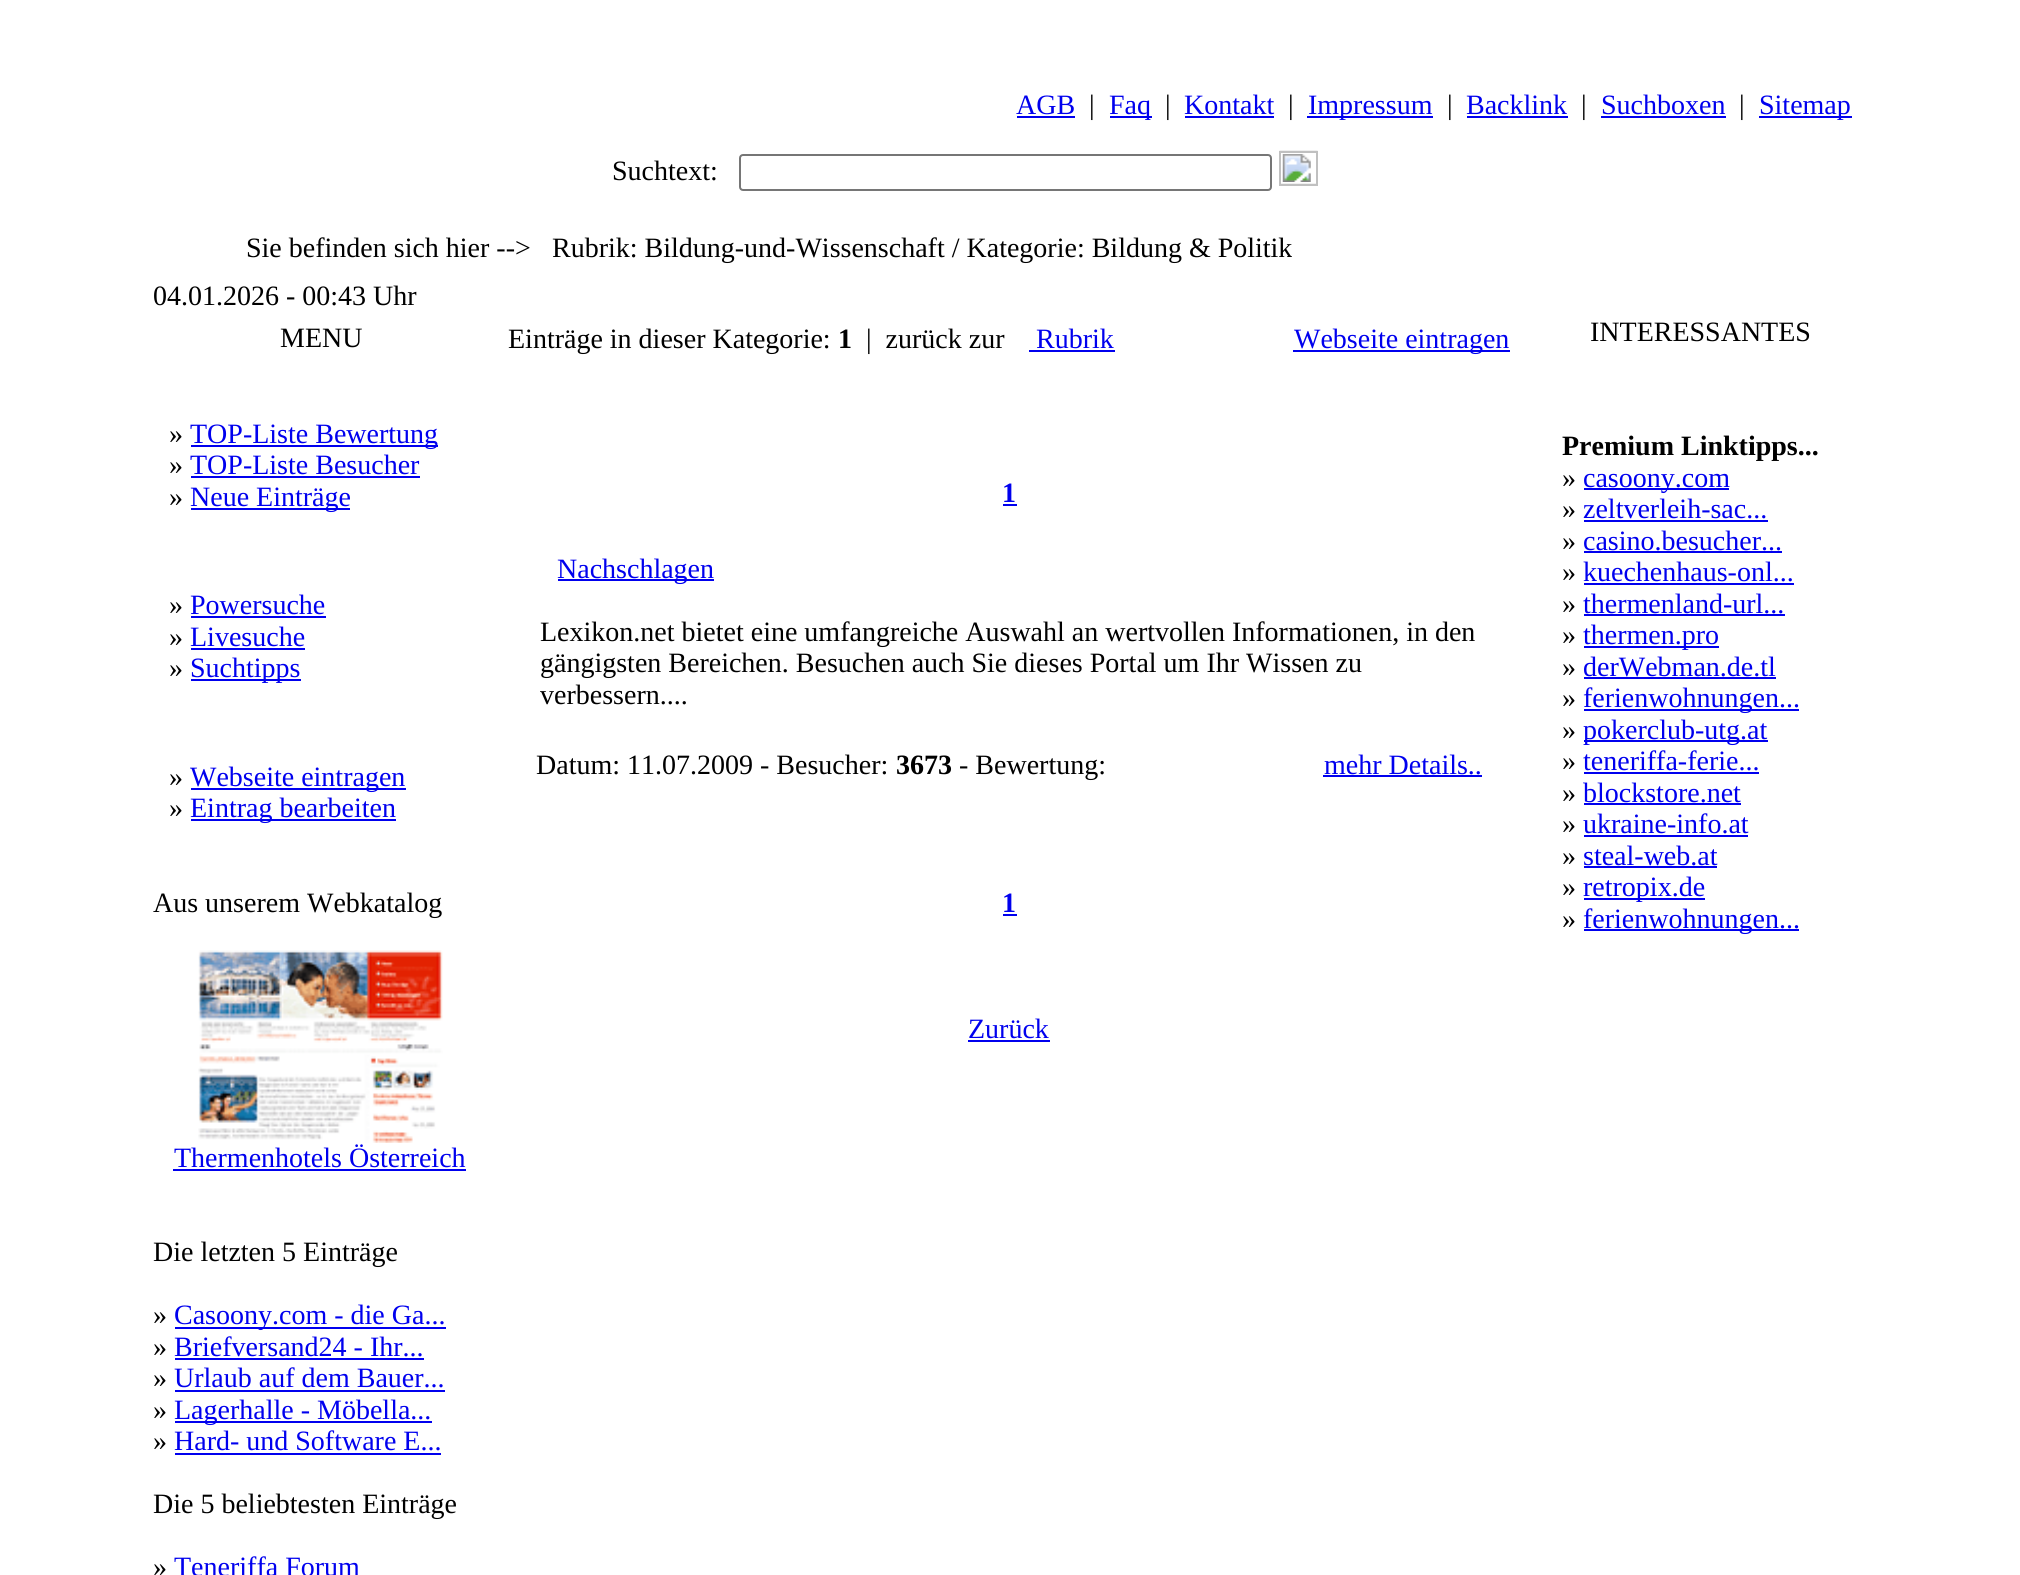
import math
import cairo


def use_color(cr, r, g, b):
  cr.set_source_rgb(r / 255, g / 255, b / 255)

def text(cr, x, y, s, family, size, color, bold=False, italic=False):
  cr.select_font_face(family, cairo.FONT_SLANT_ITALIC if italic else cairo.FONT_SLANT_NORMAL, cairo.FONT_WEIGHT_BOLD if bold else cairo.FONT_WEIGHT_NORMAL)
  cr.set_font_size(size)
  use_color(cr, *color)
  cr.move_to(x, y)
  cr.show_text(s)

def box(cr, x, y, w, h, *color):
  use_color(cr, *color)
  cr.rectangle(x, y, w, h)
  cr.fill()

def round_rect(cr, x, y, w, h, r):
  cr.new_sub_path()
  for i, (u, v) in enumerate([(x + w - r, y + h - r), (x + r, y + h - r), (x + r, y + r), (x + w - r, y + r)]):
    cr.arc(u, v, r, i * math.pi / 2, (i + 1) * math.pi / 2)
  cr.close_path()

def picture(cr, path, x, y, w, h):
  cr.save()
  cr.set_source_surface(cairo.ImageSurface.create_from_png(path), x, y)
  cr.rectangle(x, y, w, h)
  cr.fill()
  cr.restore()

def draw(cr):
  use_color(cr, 255, 255, 255)
  cr.paint()
  box(cr, 1017, 116, 58, 2, 0, 0, 238)
  box(cr, 1110, 116, 42, 2, 0, 0, 238)
  box(cr, 1185, 116, 89, 2, 0, 0, 238)
  box(cr, 1307, 116, 126, 2, 0, 0, 238)
  box(cr, 1467, 116, 101, 2, 0, 0, 238)
  box(cr, 1601, 116, 125, 2, 0, 0, 238)
  box(cr, 1759, 116, 93, 2, 0, 0, 238)
  round_rect(cr, 740, 155, 531, 35, 3)
  use_color(cr, 118, 118, 118)
  cr.stroke()
  picture(cr, "img_01.png", 1279, 150, 39, 34)
  cr.rectangle(1280, 152, 37, 33)
  use_color(cr, 192, 192, 192)
  cr.stroke()
  box(cr, 191, 445, 247, 2, 0, 0, 238)
  box(cr, 191, 476, 229, 2, 0, 0, 238)
  box(cr, 191, 508, 159, 2, 0, 0, 238)
  box(cr, 191, 616, 135, 2, 0, 0, 238)
  box(cr, 191, 648, 114, 2, 0, 0, 238)
  box(cr, 191, 679, 110, 2, 0, 0, 238)
  box(cr, 191, 788, 215, 2, 0, 0, 238)
  box(cr, 191, 819, 205, 2, 0, 0, 238)
  picture(cr, "img_02.png", 198, 950, 245, 193)
  box(cr, 173, 1169, 293, 2, 0, 0, 238)
  box(cr, 175, 1327, 271, 2, 0, 0, 238)
  box(cr, 175, 1358, 249, 2, 0, 0, 238)
  box(cr, 175, 1390, 270, 2, 0, 0, 238)
  box(cr, 175, 1421, 257, 2, 0, 0, 238)
  box(cr, 175, 1453, 266, 2, 0, 0, 238)
  box(cr, 1029, 350, 86, 2, 0, 0, 238)
  box(cr, 1293, 350, 217, 2, 0, 0, 238)
  box(cr, 1003, 504, 14, 2, 0, 0, 238)
  box(cr, 558, 579, 156, 2, 0, 0, 238)
  box(cr, 1323, 775, 159, 2, 0, 0, 238)
  box(cr, 1003, 914, 14, 2, 0, 0, 238)
  box(cr, 968, 1040, 82, 2, 0, 0, 238)
  box(cr, 1584, 488, 145, 2, 0, 0, 238)
  box(cr, 1584, 520, 184, 2, 0, 0, 238)
  box(cr, 1584, 551, 198, 2, 0, 0, 238)
  box(cr, 1584, 583, 210, 2, 0, 0, 238)
  box(cr, 1584, 614, 201, 2, 0, 0, 238)
  box(cr, 1584, 646, 135, 2, 0, 0, 238)
  box(cr, 1584, 677, 192, 2, 0, 0, 238)
  box(cr, 1584, 709, 215, 2, 0, 0, 238)
  box(cr, 1584, 740, 184, 2, 0, 0, 238)
  box(cr, 1584, 772, 175, 2, 0, 0, 238)
  box(cr, 1584, 803, 157, 2, 0, 0, 238)
  box(cr, 1584, 835, 164, 2, 0, 0, 238)
  box(cr, 1584, 866, 133, 2, 0, 0, 238)
  box(cr, 1584, 898, 121, 2, 0, 0, 238)
  box(cr, 1584, 929, 215, 2, 0, 0, 238)
  text(cr, 1016, 114, "AGB", "Liberation Serif", 28, (0, 0, 238))
  text(cr, 1089, 114, "|", "Liberation Serif", 28, (0, 0, 0))
  text(cr, 1109, 114, "Faq", "Liberation Serif", 28, (0, 0, 238))
  text(cr, 1165, 114, "|", "Liberation Serif", 28, (0, 0, 0))
  text(cr, 1184, 114, "Kontakt", "Liberation Serif", 28, (0, 0, 238))
  text(cr, 1288, 114, "|", "Liberation Serif", 28, (0, 0, 0))
  text(cr, 1308, 114, "Impressum", "Liberation Serif", 28, (0, 0, 238))
  text(cr, 1447, 114, "|", "Liberation Serif", 28, (0, 0, 0))
  text(cr, 1466, 114, "Backlink", "Liberation Serif", 28, (0, 0, 238))
  text(cr, 1581, 114, "|", "Liberation Serif", 28, (0, 0, 0))
  text(cr, 1601, 114, "Suchboxen", "Liberation Serif", 28, (0, 0, 238))
  text(cr, 1739, 114, "|", "Liberation Serif", 28, (0, 0, 0))
  text(cr, 1759, 114, "Sitemap", "Liberation Serif", 28, (0, 0, 238))
  text(cr, 612, 180, "Suchtext:", "Liberation Serif", 28, (0, 0, 0))
  text(cr, 246, 257, "Sie befinden sich hier -->", "Liberation Serif", 28, (0, 0, 0))
  text(cr, 552, 257, "Rubrik: Bildung-und-Wissenschaft / Kategorie: Bildung & Politik", "Liberation Serif", 28, (0, 0, 0))
  text(cr, 153, 305, "04.01.2026 - 00:43 Uhr", "Liberation Serif", 28, (0, 0, 0))
  text(cr, 280, 347, "MENU", "Liberation Serif", 28, (0, 0, 0))
  text(cr, 169, 443, "»", "Liberation Serif", 28, (0, 0, 0))
  text(cr, 190, 443, "TOP-Liste Bewertung", "Liberation Serif", 28, (0, 0, 238))
  text(cr, 169, 474, "»", "Liberation Serif", 28, (0, 0, 0))
  text(cr, 190, 474, "TOP-Liste Besucher", "Liberation Serif", 28, (0, 0, 238))
  text(cr, 169, 506, "»", "Liberation Serif", 28, (0, 0, 0))
  text(cr, 190, 506, "Neue Einträge", "Liberation Serif", 28, (0, 0, 238))
  text(cr, 169, 614, "»", "Liberation Serif", 28, (0, 0, 0))
  text(cr, 190, 614, "Powersuche", "Liberation Serif", 28, (0, 0, 238))
  text(cr, 169, 646, "»", "Liberation Serif", 28, (0, 0, 0))
  text(cr, 190, 646, "Livesuche", "Liberation Serif", 28, (0, 0, 238))
  text(cr, 169, 677, "»", "Liberation Serif", 28, (0, 0, 0))
  text(cr, 190, 677, "Suchtipps", "Liberation Serif", 28, (0, 0, 238))
  text(cr, 169, 786, "»", "Liberation Serif", 28, (0, 0, 0))
  text(cr, 190, 786, "Webseite eintragen", "Liberation Serif", 28, (0, 0, 238))
  text(cr, 169, 817, "»", "Liberation Serif", 28, (0, 0, 0))
  text(cr, 190, 817, "Eintrag bearbeiten", "Liberation Serif", 28, (0, 0, 238))
  text(cr, 153, 912, "Aus unserem Webkatalog", "Liberation Serif", 28, (0, 0, 0))
  text(cr, 174, 1167, "Thermenhotels Österreich", "Liberation Serif", 28, (0, 0, 238))
  text(cr, 153, 1261, "Die letzten 5 Einträge", "Liberation Serif", 28, (0, 0, 0))
  text(cr, 153, 1324, "»", "Liberation Serif", 28, (0, 0, 0))
  text(cr, 174, 1324, "Casoony.com - die Ga...", "Liberation Serif", 28, (0, 0, 238))
  text(cr, 153, 1356, "»", "Liberation Serif", 28, (0, 0, 0))
  text(cr, 174, 1356, "Briefversand24 - Ihr...", "Liberation Serif", 28, (0, 0, 238))
  text(cr, 153, 1387, "»", "Liberation Serif", 28, (0, 0, 0))
  text(cr, 174, 1387, "Urlaub auf dem Bauer...", "Liberation Serif", 28, (0, 0, 238))
  text(cr, 153, 1419, "»", "Liberation Serif", 28, (0, 0, 0))
  text(cr, 174, 1419, "Lagerhalle - Möbella...", "Liberation Serif", 28, (0, 0, 238))
  text(cr, 153, 1450, "»", "Liberation Serif", 28, (0, 0, 0))
  text(cr, 174, 1450, "Hard- und Software E...", "Liberation Serif", 28, (0, 0, 238))
  text(cr, 153, 1513, "Die 5 beliebtesten Einträge", "Liberation Serif", 28, (0, 0, 0))
  text(cr, 153, 1576, "»", "Liberation Serif", 28, (0, 0, 0))
  text(cr, 174, 1576, "Teneriffa Forum", "Liberation Serif", 28, (0, 0, 238))
  text(cr, 508, 348, "Einträge in dieser Kategorie:", "Liberation Serif", 28, (0, 0, 0))
  text(cr, 838, 348, "1", "Liberation Serif", 28, (0, 0, 0), bold=True)
  text(cr, 866, 348, "|  zurück zur", "Liberation Serif", 28, (0, 0, 0))
  text(cr, 1036, 348, "Rubrik", "Liberation Serif", 28, (0, 0, 238))
  text(cr, 1294, 348, "Webseite eintragen", "Liberation Serif", 28, (0, 0, 238))
  text(cr, 1002, 502, "1", "Liberation Serif", 28, (0, 0, 238), bold=True)
  text(cr, 557, 578, "Nachschlagen", "Liberation Serif", 28, (0, 0, 238))
  text(cr, 540, 641, "Lexikon.net bietet eine umfangreiche Auswahl an wertvollen Informationen, in den", "Liberation Serif", 28, (0, 0, 0))
  text(cr, 540, 672, "gängigsten Bereichen. Besuchen auch Sie dieses Portal um Ihr Wissen zu", "Liberation Serif", 28, (0, 0, 0))
  text(cr, 540, 704, "verbessern....", "Liberation Serif", 28, (0, 0, 0))
  text(cr, 536, 774, "Datum: 11.07.2009 - Besucher:", "Liberation Serif", 28, (0, 0, 0))
  text(cr, 896, 774, "3673", "Liberation Serif", 28, (0, 0, 0), bold=True)
  text(cr, 959, 774, "- Bewertung:", "Liberation Serif", 28, (0, 0, 0))
  text(cr, 1324, 774, "mehr Details..", "Liberation Serif", 28, (0, 0, 238))
  text(cr, 1002, 912, "1", "Liberation Serif", 28, (0, 0, 238), bold=True)
  text(cr, 968, 1038, "Zurück", "Liberation Serif", 28, (0, 0, 238))
  text(cr, 1590, 341, "INTERESSANTES", "Liberation Serif", 28, (0, 0, 0))
  text(cr, 1562, 455, "Premium Linktipps...", "Liberation Serif", 28, (0, 0, 0), bold=True)
  text(cr, 1562, 487, "»", "Liberation Serif", 28, (0, 0, 0))
  text(cr, 1583, 487, "casoony.com", "Liberation Serif", 28, (0, 0, 238))
  text(cr, 1562, 518, "»", "Liberation Serif", 28, (0, 0, 0))
  text(cr, 1583, 518, "zeltverleih-sac...", "Liberation Serif", 28, (0, 0, 238))
  text(cr, 1562, 550, "»", "Liberation Serif", 28, (0, 0, 0))
  text(cr, 1583, 550, "casino.besucher...", "Liberation Serif", 28, (0, 0, 238))
  text(cr, 1562, 581, "»", "Liberation Serif", 28, (0, 0, 0))
  text(cr, 1583, 581, "kuechenhaus-onl...", "Liberation Serif", 28, (0, 0, 238))
  text(cr, 1562, 613, "»", "Liberation Serif", 28, (0, 0, 0))
  text(cr, 1583, 613, "thermenland-url...", "Liberation Serif", 28, (0, 0, 238))
  text(cr, 1562, 644, "»", "Liberation Serif", 28, (0, 0, 0))
  text(cr, 1583, 644, "thermen.pro", "Liberation Serif", 28, (0, 0, 238))
  text(cr, 1562, 676, "»", "Liberation Serif", 28, (0, 0, 0))
  text(cr, 1583, 676, "derWebman.de.tl", "Liberation Serif", 28, (0, 0, 238))
  text(cr, 1562, 707, "»", "Liberation Serif", 28, (0, 0, 0))
  text(cr, 1583, 707, "ferienwohnungen...", "Liberation Serif", 28, (0, 0, 238))
  text(cr, 1562, 739, "»", "Liberation Serif", 28, (0, 0, 0))
  text(cr, 1583, 739, "pokerclub-utg.at", "Liberation Serif", 28, (0, 0, 238))
  text(cr, 1562, 770, "»", "Liberation Serif", 28, (0, 0, 0))
  text(cr, 1583, 770, "teneriffa-ferie...", "Liberation Serif", 28, (0, 0, 238))
  text(cr, 1562, 802, "»", "Liberation Serif", 28, (0, 0, 0))
  text(cr, 1583, 802, "blockstore.net", "Liberation Serif", 28, (0, 0, 238))
  text(cr, 1562, 833, "»", "Liberation Serif", 28, (0, 0, 0))
  text(cr, 1583, 833, "ukraine-info.at", "Liberation Serif", 28, (0, 0, 238))
  text(cr, 1562, 865, "»", "Liberation Serif", 28, (0, 0, 0))
  text(cr, 1583, 865, "steal-web.at", "Liberation Serif", 28, (0, 0, 238))
  text(cr, 1562, 896, "»", "Liberation Serif", 28, (0, 0, 0))
  text(cr, 1583, 896, "retropix.de", "Liberation Serif", 28, (0, 0, 238))
  text(cr, 1562, 928, "»", "Liberation Serif", 28, (0, 0, 0))
  text(cr, 1583, 928, "ferienwohnungen...", "Liberation Serif", 28, (0, 0, 238))


surface = cairo.ImageSurface(cairo.FORMAT_RGB24, 2020, 1575)
cr = cairo.Context(surface)
options = cairo.FontOptions()
options.set_hint_metrics(cairo.HINT_METRICS_OFF)
options.set_hint_style(cairo.HINT_STYLE_NONE)
cr.set_font_options(options)
cr.set_miter_limit(4)
draw(cr)
surface.write_to_png("out.png")
